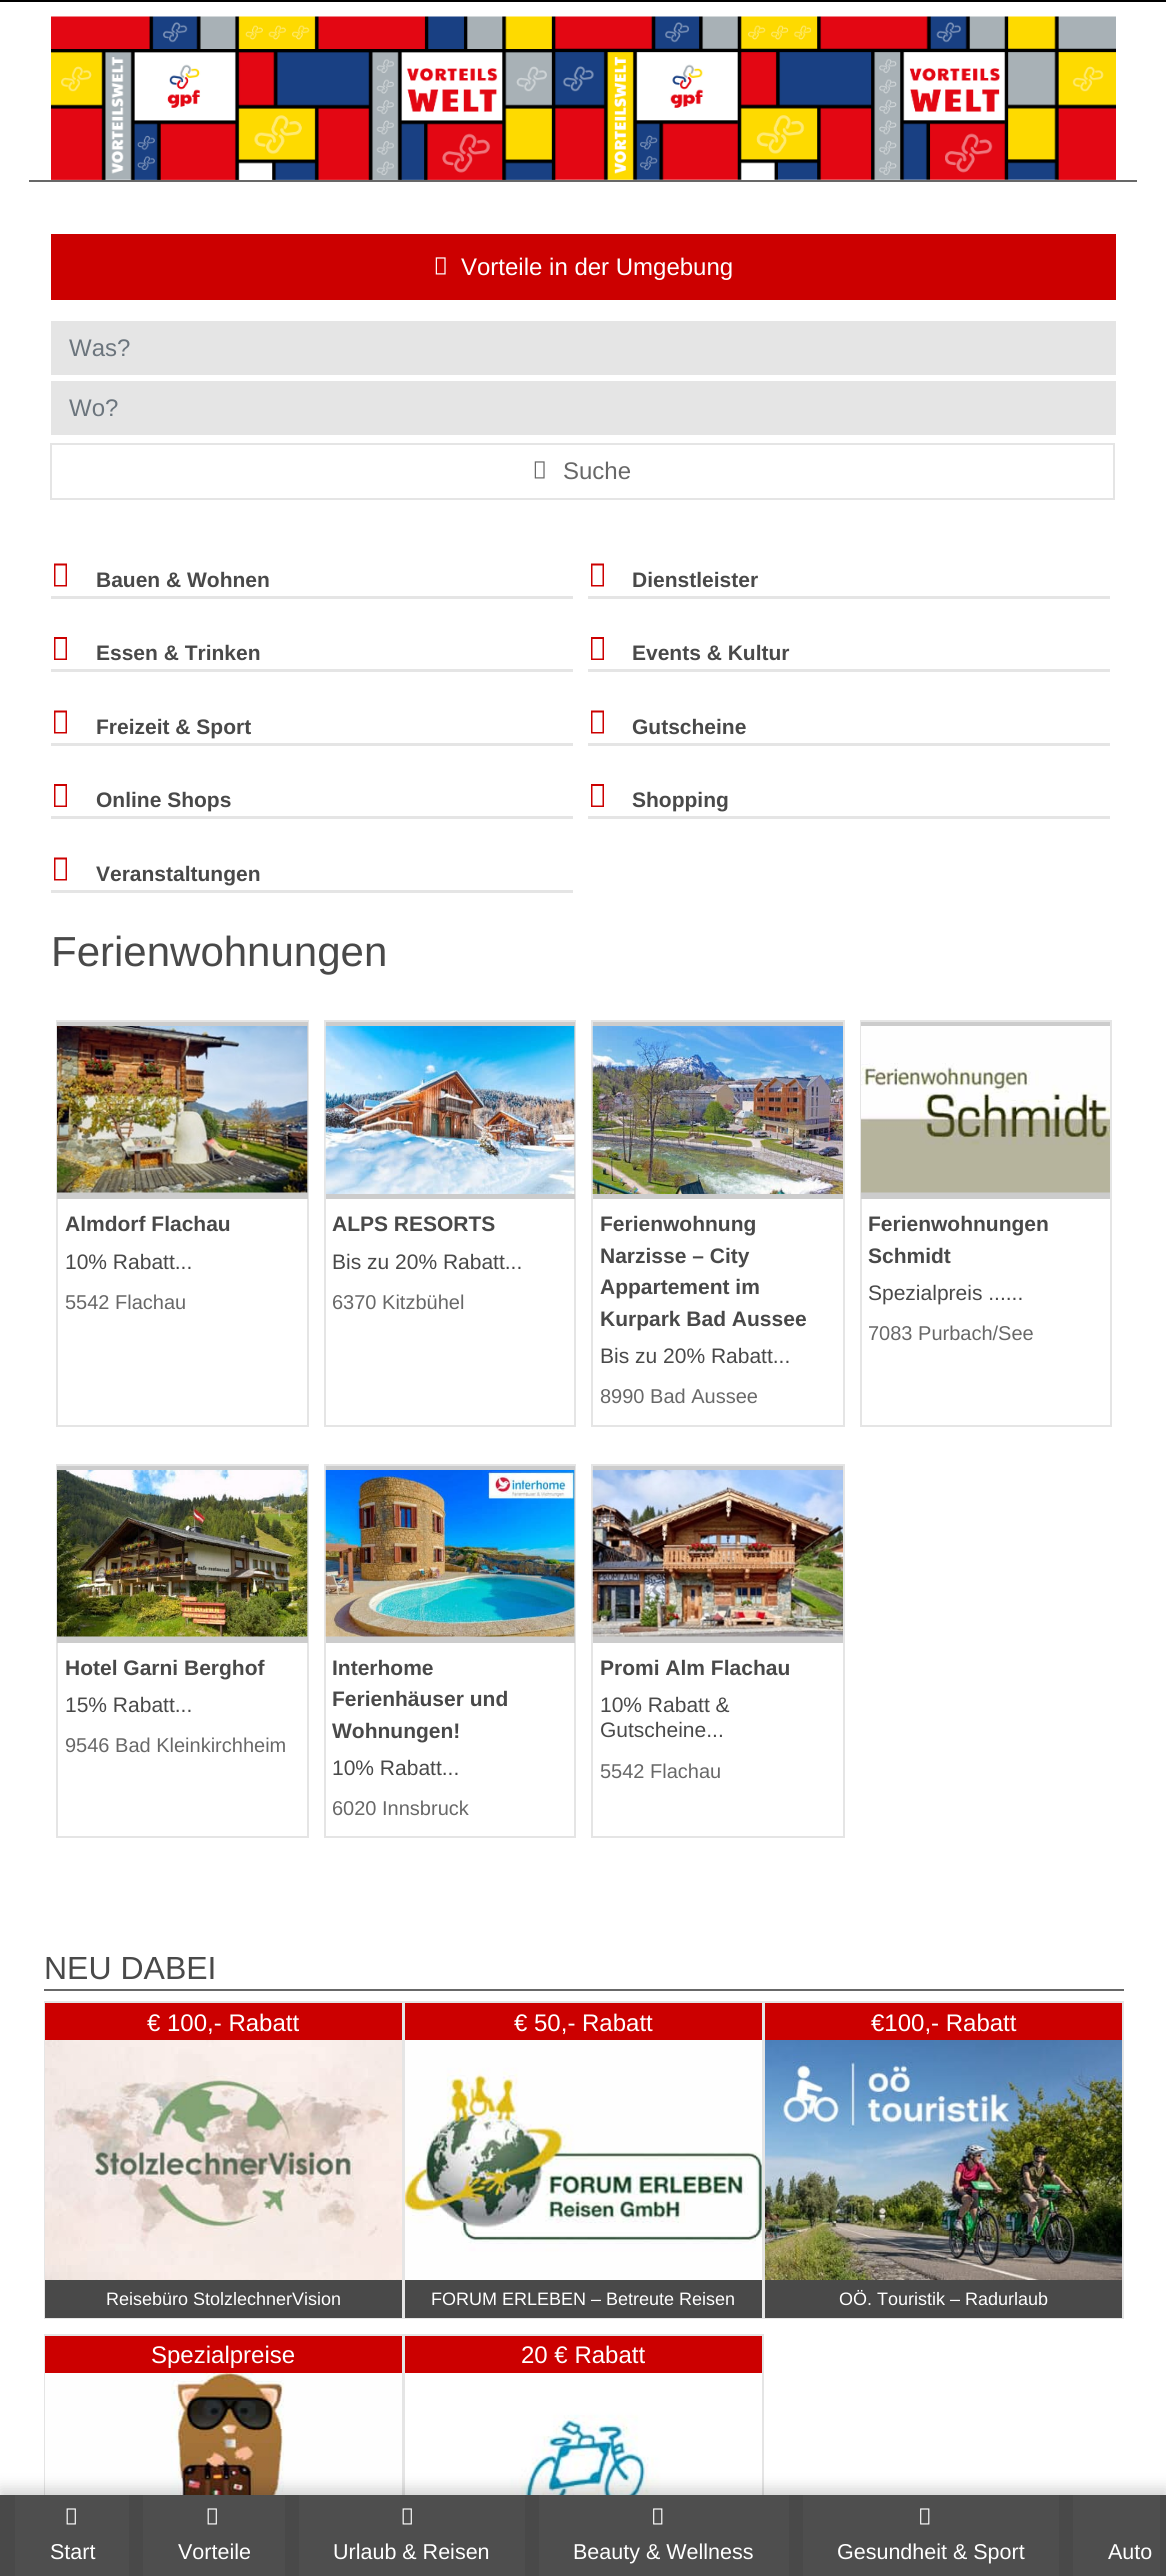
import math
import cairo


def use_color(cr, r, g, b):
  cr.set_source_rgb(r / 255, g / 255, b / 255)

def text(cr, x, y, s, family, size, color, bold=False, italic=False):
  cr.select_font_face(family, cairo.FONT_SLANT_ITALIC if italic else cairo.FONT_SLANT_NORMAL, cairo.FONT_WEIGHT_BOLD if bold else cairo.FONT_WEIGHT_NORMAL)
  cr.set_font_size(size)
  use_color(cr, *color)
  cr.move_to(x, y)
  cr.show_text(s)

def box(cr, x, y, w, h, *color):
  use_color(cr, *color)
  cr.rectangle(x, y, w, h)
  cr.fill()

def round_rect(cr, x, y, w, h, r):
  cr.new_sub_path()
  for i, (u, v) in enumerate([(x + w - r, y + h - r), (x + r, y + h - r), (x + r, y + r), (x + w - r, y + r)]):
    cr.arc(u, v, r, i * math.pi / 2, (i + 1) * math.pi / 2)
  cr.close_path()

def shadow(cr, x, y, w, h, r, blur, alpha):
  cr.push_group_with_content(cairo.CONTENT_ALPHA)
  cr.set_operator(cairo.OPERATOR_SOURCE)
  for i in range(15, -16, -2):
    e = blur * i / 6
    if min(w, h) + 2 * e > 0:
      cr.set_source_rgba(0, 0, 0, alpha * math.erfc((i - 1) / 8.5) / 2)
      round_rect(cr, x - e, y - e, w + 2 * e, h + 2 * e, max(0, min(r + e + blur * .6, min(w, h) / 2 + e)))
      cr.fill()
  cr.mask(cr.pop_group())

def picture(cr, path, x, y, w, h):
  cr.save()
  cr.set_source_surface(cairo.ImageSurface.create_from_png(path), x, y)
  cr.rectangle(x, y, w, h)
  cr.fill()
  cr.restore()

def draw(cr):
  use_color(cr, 255, 255, 255)
  cr.paint()
  box(cr, 0, 0, 1166, 2, 0, 0, 0)
  box(cr, 51, 234, 1065, 66, 204, 0, 0)
  picture(cr, "img_01.png", 435, 257, 11, 18)
  box(cr, 51, 321, 1065, 54, 229, 229, 229)
  box(cr, 51, 381, 1065, 54, 229, 229, 229)
  cr.rectangle(51, 444, 1063, 55)
  cr.stroke()
  picture(cr, "img_02.png", 534, 461, 11, 18)
  picture(cr, "img_03.png", 51, 16, 1065, 164)
  box(cr, 29, 180, 1108, 2, 104, 104, 104)
  cr.rectangle(45, 2335, 358, 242)
  use_color(cr, 229, 229, 229)
  cr.stroke()
  picture(cr, "img_16.png", 45, 2373, 357, 122)
  cr.rectangle(405, 2335, 358, 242)
  cr.stroke()
  picture(cr, "img_17.png", 405, 2373, 357, 122)
  use_color(cr, 0, 0, 0)
  shadow(cr, 0, 2489, 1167, 82, 0, 7.5, 0.18)
  box(cr, 0, 2495, 1166, 81, 73, 73, 73)
  box(cr, 15, 2495, 114, 81, 78, 78, 78)
  picture(cr, "img_04.png", 66, 2508, 10, 17)
  box(cr, 143, 2495, 142, 81, 78, 78, 78)
  picture(cr, "img_04.png", 207, 2508, 10, 17)
  box(cr, 299, 2495, 226, 81, 78, 78, 78)
  picture(cr, "img_04.png", 402, 2508, 10, 17)
  box(cr, 539, 2495, 250, 81, 78, 78, 78)
  picture(cr, "img_05.png", 653, 2508, 10, 17)
  box(cr, 803, 2495, 256, 81, 78, 78, 78)
  picture(cr, "img_05.png", 920, 2508, 10, 17)
  box(cr, 1073, 2495, 87, 81, 78, 78, 78)
  use_color(cr, 204, 0, 0)
  cr.new_path()
  cr.move_to(54, 586.5)
  cr.line_to(54, 563.5)
  cr.line_to(67, 563.5)
  cr.line_to(67, 586.5)
  cr.close_path()
  cr.move_to(55.5, 585)
  cr.line_to(65.5, 585)
  cr.line_to(65.5, 565.5)
  cr.line_to(55.5, 565.5)
  cr.close_path()
  cr.fill()
  box(cr, 51, 596, 522, 3, 229, 229, 229)
  use_color(cr, 204, 0, 0)
  cr.new_path()
  cr.move_to(591, 586.5)
  cr.line_to(591, 563.5)
  cr.line_to(604, 563.5)
  cr.line_to(604, 586.5)
  cr.close_path()
  cr.move_to(592.5, 585)
  cr.line_to(602.5, 585)
  cr.line_to(602.5, 565.5)
  cr.line_to(592.5, 565.5)
  cr.close_path()
  cr.fill()
  box(cr, 588, 596, 522, 3, 229, 229, 229)
  use_color(cr, 204, 0, 0)
  cr.new_path()
  cr.move_to(54, 660)
  cr.line_to(54, 637)
  cr.line_to(67, 637)
  cr.line_to(67, 660)
  cr.close_path()
  cr.move_to(55.5, 658.5)
  cr.line_to(65.5, 658.5)
  cr.line_to(65.5, 639)
  cr.line_to(55.5, 639)
  cr.close_path()
  cr.fill()
  box(cr, 51, 669, 522, 3, 229, 229, 229)
  use_color(cr, 204, 0, 0)
  cr.new_path()
  cr.move_to(591, 660)
  cr.line_to(591, 637)
  cr.line_to(604, 637)
  cr.line_to(604, 660)
  cr.close_path()
  cr.move_to(592.5, 658.5)
  cr.line_to(602.5, 658.5)
  cr.line_to(602.5, 639)
  cr.line_to(592.5, 639)
  cr.close_path()
  cr.fill()
  box(cr, 588, 669, 522, 3, 229, 229, 229)
  use_color(cr, 204, 0, 0)
  cr.new_path()
  cr.move_to(54, 733.5)
  cr.line_to(54, 710.5)
  cr.line_to(67, 710.5)
  cr.line_to(67, 733.5)
  cr.close_path()
  cr.move_to(55.5, 732)
  cr.line_to(65.5, 732)
  cr.line_to(65.5, 712.5)
  cr.line_to(55.5, 712.5)
  cr.close_path()
  cr.fill()
  box(cr, 51, 743, 522, 3, 229, 229, 229)
  use_color(cr, 204, 0, 0)
  cr.new_path()
  cr.move_to(591, 733.5)
  cr.line_to(591, 710.5)
  cr.line_to(604, 710.5)
  cr.line_to(604, 733.5)
  cr.close_path()
  cr.move_to(592.5, 732)
  cr.line_to(602.5, 732)
  cr.line_to(602.5, 712.5)
  cr.line_to(592.5, 712.5)
  cr.close_path()
  cr.fill()
  box(cr, 588, 743, 522, 3, 229, 229, 229)
  use_color(cr, 204, 0, 0)
  cr.new_path()
  cr.move_to(54, 807)
  cr.line_to(54, 784)
  cr.line_to(67, 784)
  cr.line_to(67, 807)
  cr.close_path()
  cr.move_to(55.5, 805.5)
  cr.line_to(65.5, 805.5)
  cr.line_to(65.5, 786)
  cr.line_to(55.5, 786)
  cr.close_path()
  cr.fill()
  box(cr, 51, 816, 522, 3, 229, 229, 229)
  use_color(cr, 204, 0, 0)
  cr.new_path()
  cr.move_to(591, 807)
  cr.line_to(591, 784)
  cr.line_to(604, 784)
  cr.line_to(604, 807)
  cr.close_path()
  cr.move_to(592.5, 805.5)
  cr.line_to(602.5, 805.5)
  cr.line_to(602.5, 786)
  cr.line_to(592.5, 786)
  cr.close_path()
  cr.fill()
  box(cr, 588, 816, 522, 3, 229, 229, 229)
  use_color(cr, 204, 0, 0)
  cr.new_path()
  cr.move_to(54, 880.5)
  cr.line_to(54, 857.5)
  cr.line_to(67, 857.5)
  cr.line_to(67, 880.5)
  cr.close_path()
  cr.move_to(55.5, 879)
  cr.line_to(65.5, 879)
  cr.line_to(65.5, 859.5)
  cr.line_to(55.5, 859.5)
  cr.close_path()
  cr.fill()
  box(cr, 51, 890, 522, 3, 229, 229, 229)
  cr.rectangle(57, 1021, 251, 405)
  cr.stroke()
  box(cr, 57, 1022, 251, 177, 204, 204, 204)
  picture(cr, "img_06.png", 57, 1026, 251, 167)
  cr.rectangle(325, 1021, 250, 405)
  use_color(cr, 229, 229, 229)
  cr.stroke()
  box(cr, 326, 1022, 249, 177, 204, 204, 204)
  picture(cr, "img_07.png", 325, 1026, 250, 168)
  cr.rectangle(592, 1021, 252, 405)
  use_color(cr, 229, 229, 229)
  cr.stroke()
  box(cr, 593, 1022, 250, 177, 204, 204, 204)
  picture(cr, "img_08.png", 592, 1026, 251, 168)
  cr.rectangle(861, 1021, 250, 405)
  use_color(cr, 229, 229, 229)
  cr.stroke()
  box(cr, 861, 1022, 249, 177, 204, 204, 204)
  picture(cr, "img_09.png", 861, 1026, 249, 167)
  cr.rectangle(57, 1465, 251, 372)
  use_color(cr, 229, 229, 229)
  cr.stroke()
  box(cr, 57, 1466, 251, 177, 204, 204, 204)
  picture(cr, "img_10.png", 57, 1470, 251, 167)
  cr.rectangle(325, 1465, 250, 372)
  use_color(cr, 229, 229, 229)
  cr.stroke()
  box(cr, 326, 1466, 249, 177, 204, 204, 204)
  picture(cr, "img_11.png", 325, 1470, 250, 167)
  cr.rectangle(592, 1465, 252, 372)
  use_color(cr, 229, 229, 229)
  cr.stroke()
  box(cr, 593, 1466, 250, 177, 204, 204, 204)
  picture(cr, "img_12.png", 592, 1470, 251, 167)
  box(cr, 44, 1989, 1080, 2, 104, 104, 104)
  cr.rectangle(45, 2002, 358, 316)
  use_color(cr, 229, 229, 229)
  cr.stroke()
  box(cr, 45, 2003, 357, 37, 204, 0, 0)
  picture(cr, "img_13.png", 45, 2040, 357, 240)
  box(cr, 45, 2280, 357, 38, 73, 73, 73)
  cr.rectangle(405, 2002, 358, 316)
  use_color(cr, 229, 229, 229)
  cr.stroke()
  box(cr, 405, 2003, 357, 37, 204, 0, 0)
  picture(cr, "img_14.png", 405, 2040, 357, 240)
  box(cr, 405, 2280, 357, 38, 73, 73, 73)
  cr.rectangle(765, 2002, 358, 316)
  use_color(cr, 229, 229, 229)
  cr.stroke()
  box(cr, 765, 2003, 357, 37, 204, 0, 0)
  picture(cr, "img_15.png", 765, 2040, 357, 240)
  box(cr, 765, 2280, 357, 38, 73, 73, 73)
  box(cr, 45, 2336, 357, 37, 204, 0, 0)
  box(cr, 405, 2336, 357, 37, 204, 0, 0)
  text(cr, 461, 275, "Vorteile in der Umgebung", "Liberation Sans", 24, (255, 255, 255))
  text(cr, 69, 356, "Was?", "Liberation Sans", 24, (108, 117, 125))
  text(cr, 69, 416, "Wo?", "Liberation Sans", 24, (108, 117, 125))
  text(cr, 563, 479, "Suche", "Liberation Sans", 24, (104, 104, 104))
  text(cr, 50, 2559, "Start", "Liberation Sans", 21.5, (255, 255, 255))
  text(cr, 178, 2559, "Vorteile", "Liberation Sans", 21.5, (255, 255, 255))
  text(cr, 333, 2559, "Urlaub & Reisen", "Liberation Sans", 21.5, (255, 255, 255))
  text(cr, 573, 2559, "Beauty & Wellness", "Liberation Sans", 21.5, (255, 255, 255))
  text(cr, 837, 2559, "Gesundheit & Sport", "Liberation Sans", 21.5, (255, 255, 255))
  text(cr, 1108, 2559, "Auto", "Liberation Sans", 21.5, (255, 255, 255))
  text(cr, 96, 587, "Bauen & Wohnen", "Liberation Sans", 21, (73, 73, 73), bold=True)
  text(cr, 632, 587, "Dienstleister", "Liberation Sans", 21, (73, 73, 73), bold=True)
  text(cr, 96, 660, "Essen & Trinken", "Liberation Sans", 21, (73, 73, 73), bold=True)
  text(cr, 632, 660, "Events & Kultur", "Liberation Sans", 21, (73, 73, 73), bold=True)
  text(cr, 96, 734, "Freizeit & Sport", "Liberation Sans", 21, (73, 73, 73), bold=True)
  text(cr, 632, 734, "Gutscheine", "Liberation Sans", 21, (73, 73, 73), bold=True)
  text(cr, 96, 807, "Online Shops", "Liberation Sans", 21, (73, 73, 73), bold=True)
  text(cr, 632, 807, "Shopping", "Liberation Sans", 21, (73, 73, 73), bold=True)
  text(cr, 96, 881, "Veranstaltungen", "Liberation Sans", 21, (73, 73, 73), bold=True)
  text(cr, 51, 966, "Ferienwohnungen", "Liberation Sans", 42, (73, 73, 73))
  text(cr, 65, 1231, "Almdorf Flachau", "Liberation Sans", 21, (73, 73, 73), bold=True)
  text(cr, 65, 1269, "10% Rabatt...", "Liberation Sans", 21, (73, 73, 73))
  text(cr, 65, 1309, "5542 Flachau", "Liberation Sans", 20, (104, 104, 104))
  text(cr, 332, 1231, "ALPS RESORTS", "Liberation Sans", 21, (73, 73, 73), bold=True)
  text(cr, 332, 1269, "Bis zu 20% Rabatt...", "Liberation Sans", 21, (73, 73, 73))
  text(cr, 332, 1309, "6370 Kitzbühel", "Liberation Sans", 20, (104, 104, 104))
  text(cr, 600, 1231, "Ferienwohnung", "Liberation Sans", 21, (73, 73, 73), bold=True)
  text(cr, 600, 1263, "Narzisse – City", "Liberation Sans", 21, (73, 73, 73), bold=True)
  text(cr, 600, 1294, "Appartement im", "Liberation Sans", 21, (73, 73, 73), bold=True)
  text(cr, 600, 1326, "Kurpark Bad Aussee", "Liberation Sans", 21, (73, 73, 73), bold=True)
  text(cr, 600, 1363, "Bis zu 20% Rabatt...", "Liberation Sans", 21, (73, 73, 73))
  text(cr, 600, 1403, "8990 Bad Aussee", "Liberation Sans", 20, (104, 104, 104))
  text(cr, 868, 1231, "Ferienwohnungen", "Liberation Sans", 21, (73, 73, 73), bold=True)
  text(cr, 868, 1263, "Schmidt", "Liberation Sans", 21, (73, 73, 73), bold=True)
  text(cr, 868, 1300, "Spezialpreis ......", "Liberation Sans", 21, (73, 73, 73))
  text(cr, 868, 1340, "7083 Purbach/See", "Liberation Sans", 20, (104, 104, 104))
  text(cr, 65, 1675, "Hotel Garni Berghof", "Liberation Sans", 21, (73, 73, 73), bold=True)
  text(cr, 65, 1712, "15% Rabatt...", "Liberation Sans", 21, (73, 73, 73))
  text(cr, 65, 1752, "9546 Bad Kleinkirchheim", "Liberation Sans", 20, (104, 104, 104))
  text(cr, 332, 1675, "Interhome", "Liberation Sans", 21, (73, 73, 73), bold=True)
  text(cr, 332, 1706, "Ferienhäuser und", "Liberation Sans", 21, (73, 73, 73), bold=True)
  text(cr, 332, 1738, "Wohnungen!", "Liberation Sans", 21, (73, 73, 73), bold=True)
  text(cr, 332, 1775, "10% Rabatt...", "Liberation Sans", 21, (73, 73, 73))
  text(cr, 332, 1815, "6020 Innsbruck", "Liberation Sans", 20, (104, 104, 104))
  text(cr, 600, 1675, "Promi Alm Flachau", "Liberation Sans", 21, (73, 73, 73), bold=True)
  text(cr, 600, 1712, "10% Rabatt &", "Liberation Sans", 21, (73, 73, 73))
  text(cr, 600, 1737, "Gutscheine...", "Liberation Sans", 21, (73, 73, 73))
  text(cr, 600, 1778, "5542 Flachau", "Liberation Sans", 20, (104, 104, 104))
  text(cr, 44, 1979, "NEU DABEI", "Liberation Sans", 32, (73, 73, 73))
  text(cr, 147, 2031, "€ 100,- Rabatt", "Liberation Sans", 24, (255, 255, 255))
  text(cr, 106, 2305, "Reisebüro StolzlechnerVision", "Liberation Sans", 18, (255, 255, 255))
  text(cr, 514, 2031, "€ 50,- Rabatt", "Liberation Sans", 24, (255, 255, 255))
  text(cr, 431, 2305, "FORUM ERLEBEN – Betreute Reisen", "Liberation Sans", 18, (255, 255, 255))
  text(cr, 871, 2031, "€100,- Rabatt", "Liberation Sans", 24, (255, 255, 255))
  text(cr, 839, 2305, "OÖ. Touristik – Radurlaub", "Liberation Sans", 18, (255, 255, 255))
  text(cr, 151, 2363, "Spezialpreise", "Liberation Sans", 24, (255, 255, 255))
  text(cr, 521, 2363, "20 € Rabatt", "Liberation Sans", 24, (255, 255, 255))


surface = cairo.ImageSurface(cairo.FORMAT_RGB24, 1166, 2576)
cr = cairo.Context(surface)
options = cairo.FontOptions()
options.set_hint_metrics(cairo.HINT_METRICS_OFF)
options.set_hint_style(cairo.HINT_STYLE_NONE)
cr.set_font_options(options)
cr.set_miter_limit(4)
draw(cr)
surface.write_to_png("out.png")
